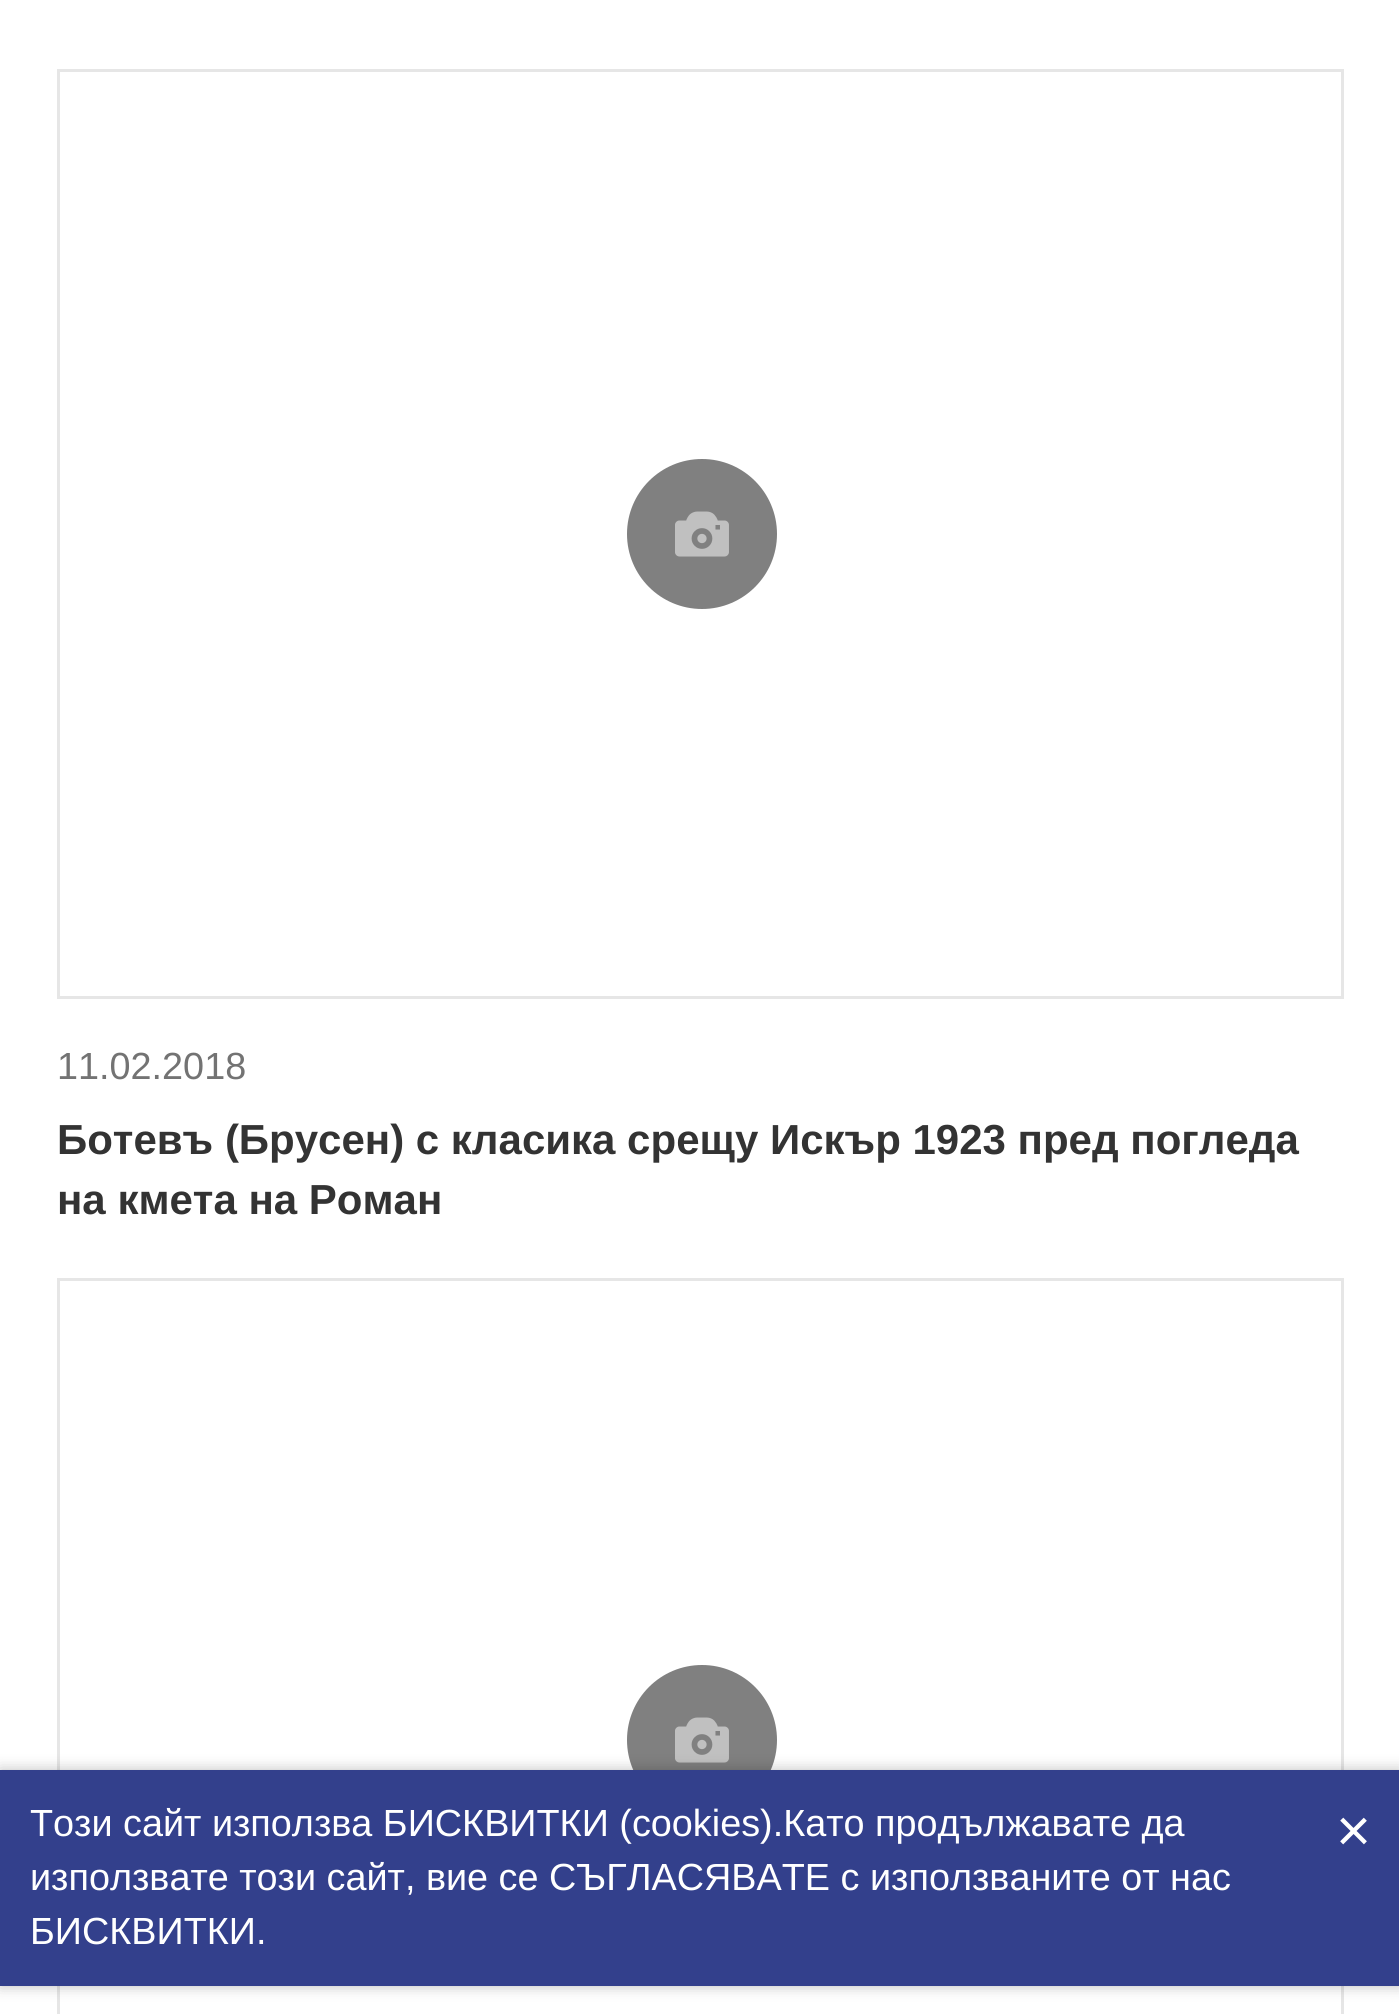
import math
import cairo


def use_color(cr, r, g, b):
  cr.set_source_rgb(r / 255, g / 255, b / 255)

def text(cr, x, y, s, family, size, color, bold=False, italic=False):
  cr.select_font_face(family, cairo.FONT_SLANT_ITALIC if italic else cairo.FONT_SLANT_NORMAL, cairo.FONT_WEIGHT_BOLD if bold else cairo.FONT_WEIGHT_NORMAL)
  cr.set_font_size(size)
  use_color(cr, *color)
  cr.move_to(x, y)
  cr.show_text(s)

def box(cr, x, y, w, h, *color):
  use_color(cr, *color)
  cr.rectangle(x, y, w, h)
  cr.fill()

def round_rect(cr, x, y, w, h, r):
  cr.new_sub_path()
  for i, (u, v) in enumerate([(x + w - r, y + h - r), (x + r, y + h - r), (x + r, y + r), (x + w - r, y + r)]):
    cr.arc(u, v, r, i * math.pi / 2, (i + 1) * math.pi / 2)
  cr.close_path()

def shadow(cr, x, y, w, h, r, blur, alpha):
  cr.push_group_with_content(cairo.CONTENT_ALPHA)
  cr.set_operator(cairo.OPERATOR_SOURCE)
  for i in range(15, -16, -2):
    e = blur * i / 6
    if min(w, h) + 2 * e > 0:
      cr.set_source_rgba(0, 0, 0, alpha * math.erfc((i - 1) / 8.5) / 2)
      round_rect(cr, x - e, y - e, w + 2 * e, h + 2 * e, max(0, min(r + e + blur * .6, min(w, h) / 2 + e)))
      cr.fill()
  cr.mask(cr.pop_group())

def picture(cr, path, x, y, w, h):
  cr.save()
  cr.set_source_surface(cairo.ImageSurface.create_from_png(path), x, y)
  cr.rectangle(x, y, w, h)
  cr.fill()
  cr.restore()

def draw(cr):
  use_color(cr, 255, 255, 255)
  cr.paint()
  cr.rectangle(58.5, 70.5, 1284, 927)
  use_color(cr, 230, 230, 230)
  cr.set_line_width(3)
  cr.stroke()
  use_color(cr, 128, 128, 128)
  cr.arc(702, 534, 75, 0, 2 * math.pi)
  cr.fill()
  picture(cr, "img_01.png", 675, 511, 54, 46)
  cr.rectangle(58.5, 1279.5, 1284, 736)
  use_color(cr, 230, 230, 230)
  cr.stroke()
  use_color(cr, 128, 128, 128)
  cr.arc(702, 1740, 75, 0, 2 * math.pi)
  cr.fill()
  picture(cr, "img_01.png", 675, 1717, 54, 46)
  use_color(cr, 0, 0, 0)
  shadow(cr, 0, 1770, 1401, 216, 0, 7.5, 0.25)
  box(cr, 0, 1770, 1399, 216, 51, 64, 140)
  text(cr, 57, 1079, "11.02.2018", "Liberation Sans", 37.8, (115, 115, 115))
  text(cr, 57, 1154, "Ботевъ (Брусен) с класика срещу Искър 1923 пред погледа", "Liberation Sans", 42, (51, 51, 51), bold=True)
  text(cr, 57, 1214, "на кмета на Роман", "Liberation Sans", 42, (51, 51, 51), bold=True)
  text(cr, 30, 1836, "Този сайт използва БИСКВИТКИ (cookies).Като продължавате да", "Liberation Sans", 37.8, (255, 255, 255))
  text(cr, 1336, 1851, "×", "Liberation Sans", 60, (255, 255, 255))
  text(cr, 30, 1890, "използвате този сайт, вие се СЪГЛАСЯВАТЕ с използваните от нас", "Liberation Sans", 37.8, (255, 255, 255))
  text(cr, 30, 1944, "БИСКВИТКИ.", "Liberation Sans", 37.8, (255, 255, 255))


surface = cairo.ImageSurface(cairo.FORMAT_RGB24, 1399, 2014)
cr = cairo.Context(surface)
options = cairo.FontOptions()
options.set_hint_metrics(cairo.HINT_METRICS_OFF)
options.set_hint_style(cairo.HINT_STYLE_NONE)
cr.set_font_options(options)
cr.set_miter_limit(4)
draw(cr)
surface.write_to_png("out.png")
